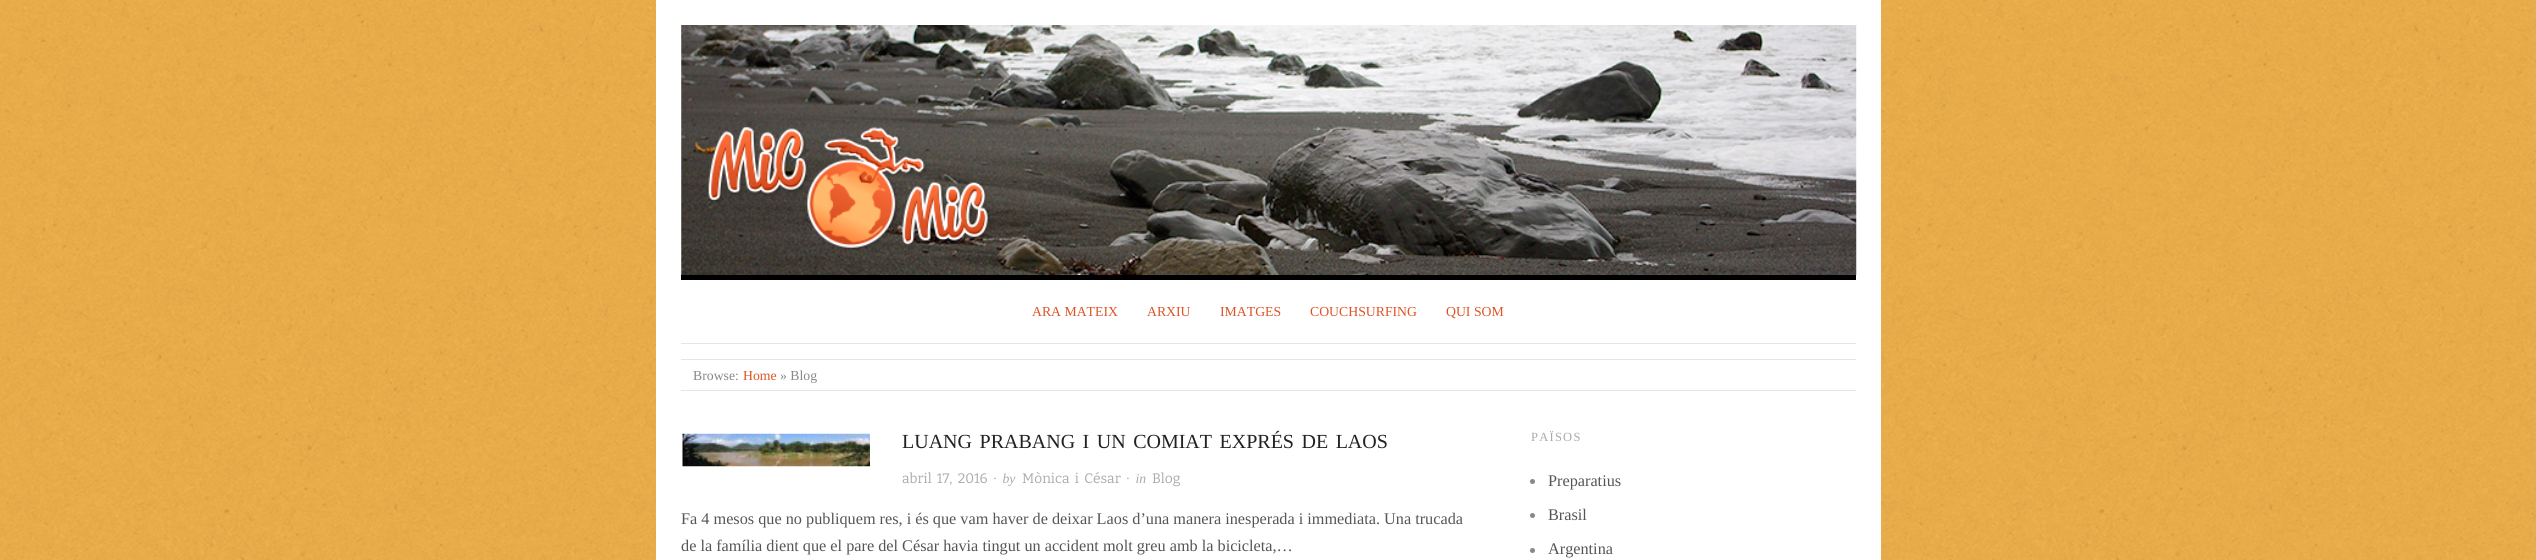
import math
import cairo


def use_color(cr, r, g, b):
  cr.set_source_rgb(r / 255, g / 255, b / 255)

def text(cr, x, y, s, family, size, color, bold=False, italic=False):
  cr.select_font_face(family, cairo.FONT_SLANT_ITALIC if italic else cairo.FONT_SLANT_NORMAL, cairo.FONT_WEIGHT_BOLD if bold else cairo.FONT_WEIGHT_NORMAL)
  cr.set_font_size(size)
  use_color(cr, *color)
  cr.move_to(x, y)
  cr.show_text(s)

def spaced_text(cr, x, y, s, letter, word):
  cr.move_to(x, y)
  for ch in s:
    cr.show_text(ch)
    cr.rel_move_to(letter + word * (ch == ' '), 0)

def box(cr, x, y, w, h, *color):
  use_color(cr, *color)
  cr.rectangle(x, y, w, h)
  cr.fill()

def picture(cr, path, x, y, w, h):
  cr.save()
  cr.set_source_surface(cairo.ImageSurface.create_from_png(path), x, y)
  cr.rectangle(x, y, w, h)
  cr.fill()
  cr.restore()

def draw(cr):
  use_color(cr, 255, 255, 255)
  cr.paint()
  picture(cr, "img_01.png", 0, 0, 2536, 560)
  box(cr, 656, 0, 1225, 560, 255, 255, 255)
  picture(cr, "img_02.png", 681, 25, 1176, 250)
  picture(cr, "img_03.png", 708, 127, 282, 123)
  box(cr, 681, 275, 1175, 5, 0, 0, 0)
  box(cr, 681, 343, 1175, 1, 229, 229, 229)
  box(cr, 681, 359, 1175, 1, 229, 229, 229)
  box(cr, 681, 390, 1175, 1, 229, 229, 229)
  picture(cr, "img_04.png", 682, 433, 188, 34)
  use_color(cr, 136, 136, 136)
  cr.arc(1532.5, 481.5, 2.5, 0, 2 * math.pi)
  cr.fill()
  cr.arc(1532.5, 515.5, 2.5, 0, 2 * math.pi)
  cr.fill()
  cr.arc(1532.5, 550.5, 2.5, 0, 2 * math.pi)
  cr.fill()
  text(cr, 1032, 316, "ARA MATEIX", "Liberation Serif", 13.75, (221, 84, 36))
  text(cr, 1147, 316, "ARXIU", "Liberation Serif", 13.75, (221, 84, 36))
  text(cr, 1220, 316, "IMATGES", "Liberation Serif", 13.75, (221, 84, 36))
  text(cr, 1310, 316, "COUCHSURFING", "Liberation Serif", 13.75, (221, 84, 36))
  text(cr, 1446, 316, "QUI SOM", "Liberation Serif", 13.75, (221, 84, 36))
  text(cr, 693, 380, "Browse:", "Liberation Serif", 13.75, (136, 136, 136))
  text(cr, 743, 380, "Home", "Liberation Serif", 13.75, (221, 84, 36))
  text(cr, 780, 380, "» Blog", "Liberation Serif", 13.75, (136, 136, 136))
  cr.set_font_size(20)
  use_color(cr, 34, 34, 34)
  spaced_text(cr, 902, 448, "LUANG PRABANG I UN COMIAT EXPRÉS DE LAOS", 0, 2.5)
  cr.select_font_face("Bitter")
  cr.set_font_size(13.75)
  use_color(cr, 170, 170, 170)
  spaced_text(cr, 902, 483, "abril 17, 2016", 0, 2.5)
  cr.select_font_face("Liberation Serif", cairo.FONT_SLANT_ITALIC)
  spaced_text(cr, 993, 483, "· by", 0, 2.5)
  cr.select_font_face("Bitter")
  spaced_text(cr, 1022, 483, "Mònica i César", 0, 2.5)
  cr.select_font_face("Liberation Serif", cairo.FONT_SLANT_ITALIC)
  spaced_text(cr, 1126, 483, "· in", 0, 2.5)
  text(cr, 1152, 483, "Blog", "Bitter", 13.75, (170, 170, 170))
  text(cr, 681, 524, "Fa 4 mesos que no publiquem res, i és que vam haver de deixar Laos d’una manera inesperada i immediata. Una trucada", "Liberation Serif", 16.25, (85, 85, 85))
  text(cr, 681, 551, "de la família dient que el pare del César havia tingut un accident molt greu amb la bicicleta,…", "Liberation Serif", 16.25, (85, 85, 85))
  cr.set_font_size(12.5)
  use_color(cr, 170, 170, 170)
  spaced_text(cr, 1531, 441, "PAÏSOS", 1.25, 0)
  text(cr, 1548, 486, "Preparatius", "Liberation Serif", 16.25, (85, 85, 85))
  text(cr, 1548, 520, "Brasil", "Liberation Serif", 16.25, (85, 85, 85))
  text(cr, 1548, 554, "Argentina", "Liberation Serif", 16.25, (85, 85, 85))


surface = cairo.ImageSurface(cairo.FORMAT_RGB24, 2536, 560)
cr = cairo.Context(surface)
options = cairo.FontOptions()
options.set_hint_metrics(cairo.HINT_METRICS_OFF)
options.set_hint_style(cairo.HINT_STYLE_NONE)
cr.set_font_options(options)
cr.set_miter_limit(4)
draw(cr)
surface.write_to_png("out.png")
